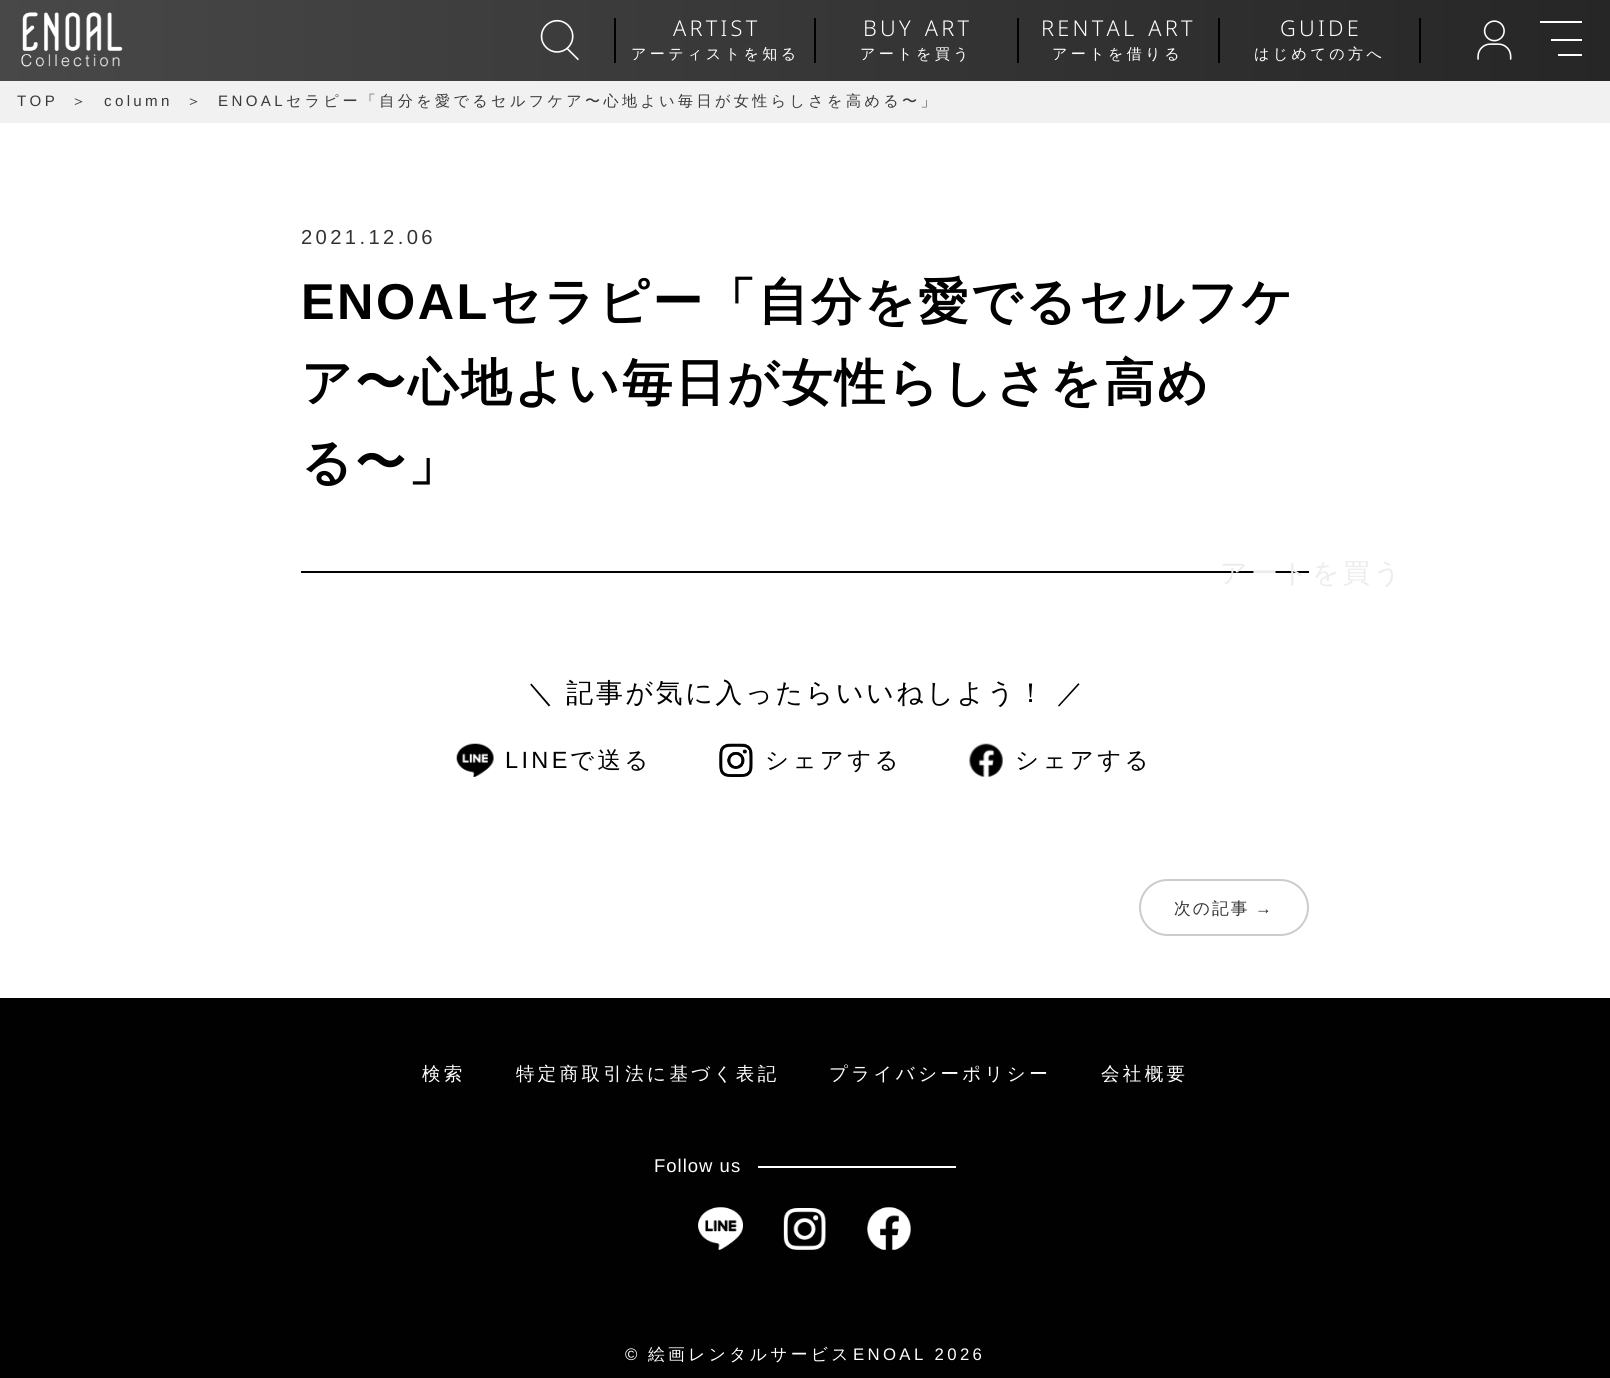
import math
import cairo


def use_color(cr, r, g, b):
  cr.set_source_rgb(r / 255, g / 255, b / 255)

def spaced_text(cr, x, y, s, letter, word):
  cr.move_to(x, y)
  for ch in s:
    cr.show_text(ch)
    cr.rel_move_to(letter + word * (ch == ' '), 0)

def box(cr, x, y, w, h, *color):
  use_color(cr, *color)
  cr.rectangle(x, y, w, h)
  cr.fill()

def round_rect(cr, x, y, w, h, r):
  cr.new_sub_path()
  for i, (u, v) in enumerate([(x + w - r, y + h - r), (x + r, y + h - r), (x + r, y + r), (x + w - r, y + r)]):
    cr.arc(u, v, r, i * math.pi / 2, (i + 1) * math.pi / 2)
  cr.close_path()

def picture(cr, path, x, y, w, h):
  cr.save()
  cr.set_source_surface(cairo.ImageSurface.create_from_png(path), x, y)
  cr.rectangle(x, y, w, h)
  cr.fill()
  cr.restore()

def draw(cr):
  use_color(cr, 255, 255, 255)
  cr.paint()
  gradient = cairo.LinearGradient(0, 40, 1610, 40)
  gradient.add_color_stop_rgba(0, 0.282, 0.282, 0.282, 1)
  gradient.add_color_stop_rgba(1, 0.149, 0.149, 0.149, 1)
  cr.set_source(gradient)
  cr.rectangle(0, 0, 1610, 81)
  cr.fill()
  picture(cr, "img_01.png", 21, 12, 102, 55)
  picture(cr, "img_02.png", 540, 19, 39, 42)
  box(cr, 814, 18, 2, 45, 1, 1, 1)
  box(cr, 614, 18, 2, 45, 1, 1, 1)
  box(cr, 1017, 18, 2, 45, 1, 1, 1)
  box(cr, 1218, 18, 2, 45, 1, 1, 1)
  box(cr, 1419, 18, 2, 45, 1, 1, 1)
  picture(cr, "img_03.png", 1477, 20, 35, 40)
  box(cr, 1540, 21, 42, 2, 255, 255, 255)
  box(cr, 1551, 39, 31, 2, 255, 255, 255)
  box(cr, 1558, 54, 24, 2, 255, 255, 255)
  box(cr, 0, 81, 1610, 42, 241, 241, 241)
  box(cr, 301, 571, 1008, 2, 1, 1, 1)
  picture(cr, "img_04.png", 456, 743, 38, 34)
  picture(cr, "img_05.png", 719, 743, 34, 34)
  picture(cr, "img_06.png", 969, 743, 34, 34)
  round_rect(cr, 1140, 880, 168, 55, 27.5)
  use_color(cr, 204, 204, 204)
  cr.stroke()
  box(cr, 0, 998, 1610, 380, 1, 1, 1)
  box(cr, 758, 1166, 198, 2, 255, 255, 255)
  picture(cr, "img_07.png", 698, 1207, 45, 43)
  picture(cr, "img_08.png", 783, 1208, 43, 42)
  picture(cr, "img_09.png", 867, 1207, 44, 43)
  cr.select_font_face("Noto Sans Light")
  cr.set_font_size(21.75)
  spaced_text(cr, 673, 36, "ARTIST", 3.25, 0)
  cr.select_font_face("WenQuanYi Zen Hei Medium")
  cr.set_font_size(15.1)
  spaced_text(cr, 631, 59, "アーティストを知る", 3.35, 0)
  cr.select_font_face("Noto Sans Light")
  cr.set_font_size(21.75)
  spaced_text(cr, 863, 36, "BUY ART", 3.25, 2)
  cr.select_font_face("WenQuanYi Zen Hei Medium")
  cr.set_font_size(15.1)
  spaced_text(cr, 860, 59, "アートを買う", 3.35, 0)
  cr.select_font_face("Noto Sans Light")
  cr.set_font_size(21.75)
  spaced_text(cr, 1041, 36, "RENTAL ART", 3.25, 2)
  cr.select_font_face("WenQuanYi Zen Hei Medium")
  cr.set_font_size(15.1)
  spaced_text(cr, 1052, 59, "アートを借りる", 3.35, 0)
  cr.select_font_face("Noto Sans Light")
  cr.set_font_size(21.75)
  spaced_text(cr, 1280, 36, "GUIDE", 3.25, 0)
  cr.select_font_face("WenQuanYi Zen Hei Medium")
  cr.set_font_size(15.1)
  spaced_text(cr, 1254, 59, "はじめての方へ", 3.35, 0)
  cr.set_font_size(26.9)
  use_color(cr, 236, 236, 236)
  spaced_text(cr, 1220, 582, "アートを買う", 3.35, 0)
  cr.select_font_face("Liberation Sans")
  cr.set_font_size(15.1)
  use_color(cr, 59, 57, 57)
  spaced_text(cr, 17, 106, "TOP", 3.35, 0)
  cr.select_font_face("WenQuanYi Zen Hei Medium")
  spaced_text(cr, 71, 106, "＞", 3.35, 0)
  cr.select_font_face("Liberation Sans")
  spaced_text(cr, 104, 106, "column", 3.35, 0)
  cr.select_font_face("WenQuanYi Zen Hei Medium")
  spaced_text(cr, 186, 106, "＞", 3.35, 0)
  cr.select_font_face("Liberation Sans")
  spaced_text(cr, 218, 106, "ENOAL", 3.35, 0)
  cr.select_font_face("WenQuanYi Zen Hei Medium")
  spaced_text(cr, 286, 106, "セラピー「自分を愛でるセルフケア〜心地よい毎日が女性らしさを高める〜」", 3.35, 0)
  cr.select_font_face("Liberation Sans")
  cr.set_font_size(20.25)
  use_color(cr, 51, 51, 51)
  spaced_text(cr, 301, 244, "2021.12.06", 3.35, 0)
  cr.select_font_face("Liberation Sans", cairo.FONT_SLANT_NORMAL, cairo.FONT_WEIGHT_BOLD)
  cr.set_font_size(50.4)
  use_color(cr, 0, 0, 0)
  spaced_text(cr, 301, 319, "ENOAL", 2.5, 0)
  cr.select_font_face("WenQuanYi Zen Hei", cairo.FONT_SLANT_NORMAL, cairo.FONT_WEIGHT_BOLD)
  spaced_text(cr, 490, 319, "セラピー「自分を愛でるセルフケ", 2.5, 0)
  spaced_text(cr, 301, 400, "ア〜心地よい毎日が女性らしさを高め", 2.5, 0)
  spaced_text(cr, 301, 480, "る〜」", 2.5, 0)
  cr.select_font_face("WenQuanYi Zen Hei Medium")
  cr.set_font_size(26.9)
  spaced_text(cr, 527, 702, "＼ 記事が気に入ったらいいねしよう！ ／", 2.7, -1)
  cr.select_font_face("Liberation Sans")
  cr.set_font_size(23.5)
  spaced_text(cr, 505, 768, "LINE", 3.35, 0)
  cr.select_font_face("WenQuanYi Zen Hei Medium")
  spaced_text(cr, 570, 768, "で送る", 3.35, 0)
  spaced_text(cr, 765, 768, "シェアする", 3.35, 0)
  spaced_text(cr, 1015, 768, "シェアする", 3.35, 0)
  cr.set_font_size(16.75)
  use_color(cr, 51, 51, 51)
  spaced_text(cr, 1174, 914, "次の記事", 2, 0)
  cr.select_font_face("Liberation Sans")
  spaced_text(cr, 1255, 914, "→", 2, 0)
  cr.select_font_face("WenQuanYi Zen Hei Medium")
  cr.set_font_size(18.5)
  use_color(cr, 255, 255, 255)
  spaced_text(cr, 422, 1080, "検索", 3.35, 0)
  spaced_text(cr, 516, 1080, "特定商取引法に基づく表記", 3.35, 0)
  spaced_text(cr, 829, 1080, "プライバシーポリシー", 3.35, 0)
  spaced_text(cr, 1101, 1080, "会社概要", 3.35, 0)
  cr.select_font_face("Liberation Sans")
  spaced_text(cr, 654, 1172, "Follow us", 1, 0)
  cr.set_font_size(16.75)
  spaced_text(cr, 625, 1360, "©", 3.35, 0)
  cr.select_font_face("WenQuanYi Zen Hei Medium")
  spaced_text(cr, 648, 1360, "絵画レンタルサービス", 3.35, 0)
  cr.select_font_face("Liberation Sans")
  spaced_text(cr, 853, 1360, "ENOAL 2026", 3.35, 0)


surface = cairo.ImageSurface(cairo.FORMAT_RGB24, 1610, 1378)
cr = cairo.Context(surface)
options = cairo.FontOptions()
options.set_hint_metrics(cairo.HINT_METRICS_OFF)
options.set_hint_style(cairo.HINT_STYLE_NONE)
cr.set_font_options(options)
cr.set_miter_limit(4)
draw(cr)
surface.write_to_png("out.png")
